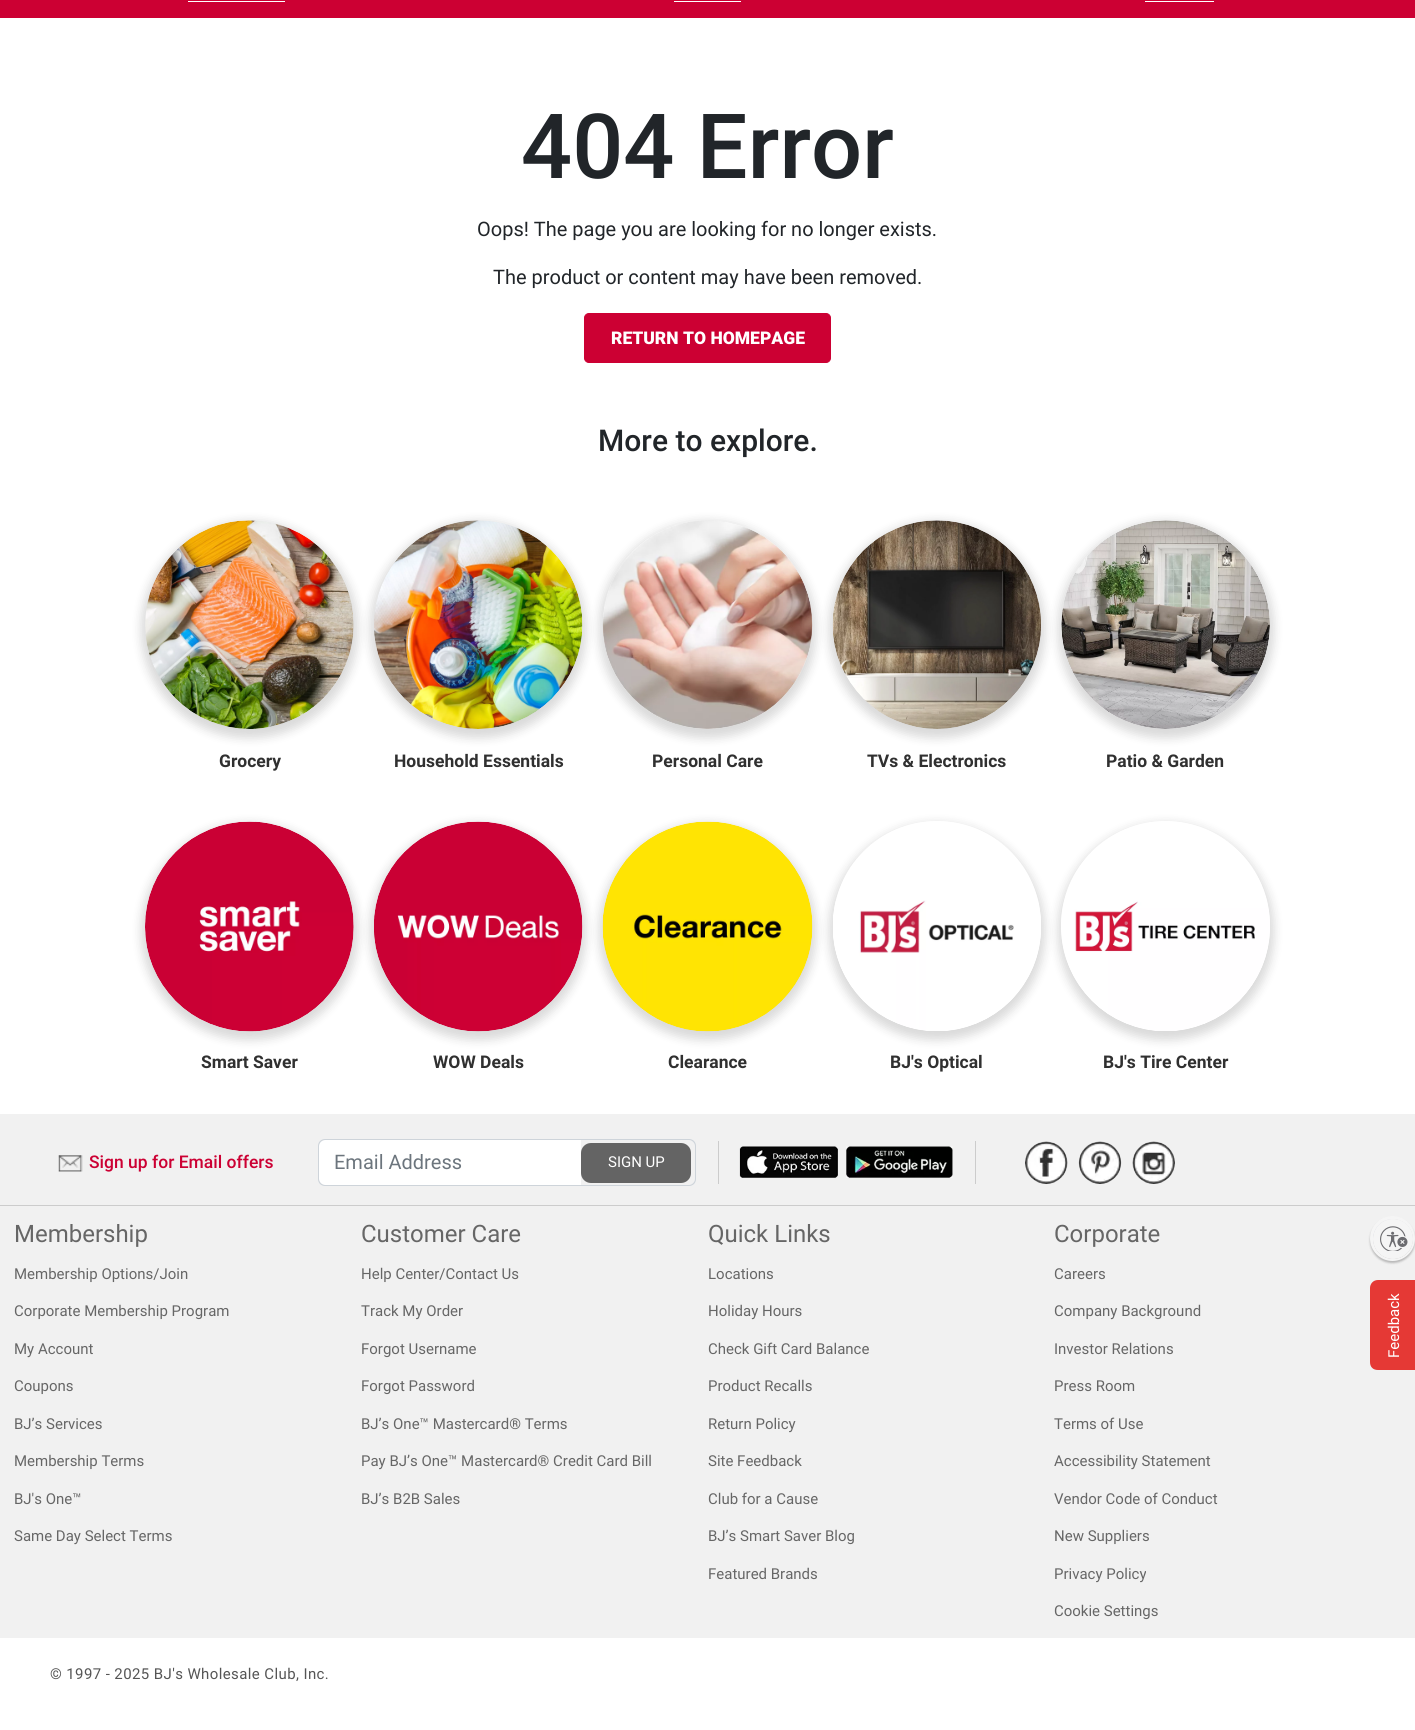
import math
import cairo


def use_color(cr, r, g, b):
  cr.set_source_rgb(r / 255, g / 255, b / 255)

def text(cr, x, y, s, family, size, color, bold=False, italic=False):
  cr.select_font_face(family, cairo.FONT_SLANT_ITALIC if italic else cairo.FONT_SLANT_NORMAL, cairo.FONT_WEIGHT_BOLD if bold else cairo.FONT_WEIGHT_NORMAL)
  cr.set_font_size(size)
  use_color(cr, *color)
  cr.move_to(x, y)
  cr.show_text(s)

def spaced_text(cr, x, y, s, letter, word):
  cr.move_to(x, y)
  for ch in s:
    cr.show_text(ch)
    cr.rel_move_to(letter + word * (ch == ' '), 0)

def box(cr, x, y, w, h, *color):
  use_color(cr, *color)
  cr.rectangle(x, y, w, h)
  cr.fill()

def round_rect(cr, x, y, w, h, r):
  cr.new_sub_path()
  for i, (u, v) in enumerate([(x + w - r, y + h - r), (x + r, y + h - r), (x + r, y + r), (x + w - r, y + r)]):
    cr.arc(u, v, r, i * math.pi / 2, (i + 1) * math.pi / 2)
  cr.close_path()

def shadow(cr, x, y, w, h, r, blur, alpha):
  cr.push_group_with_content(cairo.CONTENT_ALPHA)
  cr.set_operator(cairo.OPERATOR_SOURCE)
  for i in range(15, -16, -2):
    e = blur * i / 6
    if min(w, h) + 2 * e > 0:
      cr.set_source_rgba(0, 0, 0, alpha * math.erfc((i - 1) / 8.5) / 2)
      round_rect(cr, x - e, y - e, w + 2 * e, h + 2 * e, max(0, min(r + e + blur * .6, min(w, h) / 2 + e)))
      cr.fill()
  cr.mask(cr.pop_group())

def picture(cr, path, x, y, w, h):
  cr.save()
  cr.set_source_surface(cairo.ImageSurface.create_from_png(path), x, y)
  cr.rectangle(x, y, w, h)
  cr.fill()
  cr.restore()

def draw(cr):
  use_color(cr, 255, 255, 255)
  cr.paint()
  box(cr, 0, 0, 1415, 18, 204, 0, 51)
  box(cr, 188, 1, 97, 1, 255, 255, 255)
  box(cr, 674, 1, 67, 1, 255, 255, 255)
  box(cr, 1145, 1, 69, 1, 255, 255, 255)
  use_color(cr, 204, 0, 51)
  round_rect(cr, 584.5, 313.5, 246, 49, 4.5)
  cr.fill_preserve()
  cr.set_line_width(1)
  cr.stroke()
  use_color(cr, 0, 0, 0)
  shadow(cr, 141, 521, 217, 217, 108.5, 5, 0.15)
  picture(cr, "img_01.png", 145, 520, 209, 209)
  shadow(cr, 370, 521, 216, 217, 108, 5, 0.15)
  picture(cr, "img_02.png", 374, 520, 209, 209)
  shadow(cr, 599, 521, 217, 217, 108.5, 5, 0.15)
  picture(cr, "img_03.png", 602, 520, 211, 209)
  shadow(cr, 829, 521, 216, 217, 108, 5, 0.15)
  picture(cr, "img_04.png", 832, 520, 209, 209)
  shadow(cr, 1058, 521, 216, 217, 108, 5, 0.15)
  picture(cr, "img_05.png", 1061, 520, 209, 209)
  shadow(cr, 141, 823, 217, 217, 108.5, 5, 0.15)
  picture(cr, "img_06.png", 145, 821, 209, 211)
  shadow(cr, 370, 823, 216, 217, 108, 5, 0.15)
  picture(cr, "img_07.png", 374, 821, 209, 211)
  shadow(cr, 599, 823, 217, 217, 108.5, 5, 0.15)
  picture(cr, "img_08.png", 602, 821, 211, 211)
  cr.save()
  cr.set_fill_rule(cairo.FILL_RULE_EVEN_ODD)
  cr.new_path()
  cr.move_to(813, 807)
  cr.line_to(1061, 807)
  cr.line_to(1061, 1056)
  cr.line_to(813, 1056)
  cr.close_path()
  cr.move_to(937, 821)
  cr.curve_to(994.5, 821, 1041, 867.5, 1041, 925)
  cr.line_to(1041, 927)
  cr.curve_to(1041, 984.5, 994.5, 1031, 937, 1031)
  cr.curve_to(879.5, 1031, 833, 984.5, 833, 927)
  cr.line_to(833, 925)
  cr.curve_to(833, 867.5, 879.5, 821, 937, 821)
  cr.close_path()
  cr.clip()
  shadow(cr, 829, 823, 216, 217, 108, 5, 0.15)
  cr.restore()
  picture(cr, "img_09.png", 833, 900, 208, 131)
  cr.save()
  cr.set_fill_rule(cairo.FILL_RULE_EVEN_ODD)
  cr.new_path()
  cr.move_to(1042, 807)
  cr.line_to(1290, 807)
  cr.line_to(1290, 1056)
  cr.line_to(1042, 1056)
  cr.close_path()
  cr.move_to(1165.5, 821)
  cr.curve_to(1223, 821, 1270, 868, 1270, 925.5)
  cr.line_to(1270, 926.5)
  cr.curve_to(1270, 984, 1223, 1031, 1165.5, 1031)
  cr.curve_to(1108, 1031, 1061, 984, 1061, 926.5)
  cr.line_to(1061, 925.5)
  cr.curve_to(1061, 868, 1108, 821, 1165.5, 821)
  cr.close_path()
  cr.clip()
  shadow(cr, 1058, 823, 216, 217, 108, 5, 0.15)
  cr.restore()
  picture(cr, "img_10.png", 1062, 896, 208, 135)
  box(cr, 0, 1206, 1415, 432, 241, 241, 241)
  use_color(cr, 229, 57, 53)
  cr.new_path()
  cr.move_to(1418, 1370)
  cr.line_to(1378, 1370)
  cr.curve_to(1373, 1370, 1370, 1367, 1370, 1362)
  cr.line_to(1370, 1288)
  cr.curve_to(1370, 1284, 1373, 1280, 1378, 1280)
  cr.line_to(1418, 1280)
  cr.close_path()
  cr.fill()
  box(cr, 0, 1114, 1415, 91, 241, 241, 241)
  picture(cr, "img_11.png", 58, 1155, 25, 17)
  use_color(cr, 255, 255, 255)
  cr.new_path()
  cr.move_to(325, 1140)
  cr.line_to(581, 1140)
  cr.line_to(581, 1185)
  cr.line_to(325, 1185)
  cr.curve_to(321.5, 1185, 319, 1182.5, 319, 1179)
  cr.line_to(319, 1146)
  cr.curve_to(319, 1142.5, 321.5, 1140, 325, 1140)
  cr.close_path()
  cr.fill()
  use_color(cr, 206, 212, 218)
  cr.set_fill_rule(cairo.FILL_RULE_EVEN_ODD)
  cr.new_path()
  cr.move_to(325, 1139)
  cr.line_to(581, 1139)
  cr.line_to(581, 1186)
  cr.line_to(325, 1186)
  cr.curve_to(321, 1186, 318, 1183, 318, 1179)
  cr.line_to(318, 1146)
  cr.curve_to(318, 1142, 321, 1139, 325, 1139)
  cr.close_path()
  cr.move_to(325, 1140)
  cr.line_to(581, 1140)
  cr.line_to(581, 1185)
  cr.line_to(325, 1185)
  cr.curve_to(322, 1185, 319, 1182, 319, 1179)
  cr.line_to(319, 1146)
  cr.curve_to(319, 1143, 322, 1140, 325, 1140)
  cr.close_path()
  cr.fill()
  cr.new_path()
  cr.move_to(581, 1139)
  cr.line_to(689, 1139)
  cr.curve_to(693, 1139, 696, 1142, 696, 1146)
  cr.line_to(696, 1179)
  cr.curve_to(696, 1183, 693, 1186, 689, 1186)
  cr.line_to(581, 1186)
  cr.close_path()
  cr.move_to(581, 1140)
  cr.line_to(689, 1140)
  cr.curve_to(692, 1140, 695, 1143, 695, 1146)
  cr.line_to(695, 1179)
  cr.curve_to(695, 1182, 692, 1185, 689, 1185)
  cr.line_to(581, 1185)
  cr.close_path()
  cr.fill()
  use_color(cr, 100, 100, 100)
  round_rect(cr, 581, 1143, 110, 40, 10)
  cr.fill()
  box(cr, 718, 1141, 1, 43, 204, 204, 204)
  picture(cr, "img_12.png", 739, 1146, 99, 32)
  picture(cr, "img_13.png", 846, 1146, 107, 32)
  box(cr, 975, 1141, 1, 43, 204, 204, 204)
  picture(cr, "img_14.png", 1025, 1141, 43, 43)
  picture(cr, "img_15.png", 1078, 1141, 44, 43)
  picture(cr, "img_16.png", 1132, 1141, 43, 43)
  box(cr, 0, 1205, 1415, 1, 204, 204, 204)
  use_color(cr, 0, 0, 0)
  shadow(cr, 1370, 1218, 45, 45, 22.5, 1, 0.24)
  use_color(cr, 235, 235, 240)
  cr.arc(1392.5, 1238.5, 21, 0, 2 * math.pi)
  cr.fill_preserve()
  use_color(cr, 245, 245, 245)
  cr.set_line_width(3)
  cr.stroke()
  cr.save()
  cr.set_fill_rule(cairo.FILL_RULE_WINDING)
  round_rect(cr, 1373, 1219, 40, 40, 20)
  cr.clip()
  use_color(cr, 0, 0, 0)
  shadow(cr, 1373, 1220, 40, 40, 20, 1, 0.24)
  cr.restore()
  cr.arc(1393, 1239, 20, 0, 2 * math.pi)
  cr.fill()
  picture(cr, "img_17.png", 1380, 1226, 28, 25)
  text(cr, 521, 178, "404 Error", "Roboto Medium", 90, (33, 37, 41))
  text(cr, 477, 236, "Oops! The page you are looking for no longer exists.", "Roboto", 20, (33, 37, 41))
  text(cr, 493, 284, "The product or content may have been removed.", "Roboto", 20, (33, 37, 41))
  text(cr, 611, 344, "RETURN TO HOMEPAGE", "Roboto Black", 17.5, (255, 255, 255))
  text(cr, 598, 451, "More to explore.", "Roboto Medium", 30, (33, 37, 41))
  text(cr, 219, 767, "Grocery", "Roboto", 17.5, (48, 48, 48), bold=True)
  text(cr, 394, 767, "Household Essentials", "Roboto", 17.5, (48, 48, 48), bold=True)
  text(cr, 652, 767, "Personal Care", "Roboto", 17.5, (48, 48, 48), bold=True)
  text(cr, 867, 767, "TVs & Electronics", "Roboto", 17.5, (48, 48, 48), bold=True)
  text(cr, 1106, 767, "Patio & Garden", "Roboto", 17.5, (48, 48, 48), bold=True)
  text(cr, 201, 1068, "Smart Saver", "Roboto", 17.5, (48, 48, 48), bold=True)
  text(cr, 433, 1068, "WOW Deals", "Roboto", 17.5, (48, 48, 48), bold=True)
  text(cr, 668, 1068, "Clearance", "Roboto", 17.5, (48, 48, 48), bold=True)
  text(cr, 890, 1068, "BJ's Optical", "Roboto", 17.5, (48, 48, 48), bold=True)
  text(cr, 1103, 1068, "BJ's Tire Center", "Roboto", 17.5, (48, 48, 48), bold=True)
  cr.save()
  cr.translate(1399, 1358)
  cr.rotate(-90 * math.pi / 180)
  text(cr, 0, 0, "Feedback", "Roboto", 15, (255, 255, 255))
  cr.restore()
  text(cr, 89, 1168, "Sign up for Email offers", "Roboto Medium", 17.5, (204, 0, 51))
  text(cr, 334, 1169, "Email Address", "Roboto", 20, (108, 117, 125))
  text(cr, 608, 1167, "SIGN UP", "Roboto", 15, (255, 255, 255))
  text(cr, 14, 1242, "Membership", "Roboto", 24, (102, 102, 102))
  text(cr, 14, 1279, "Membership Options/Join", "Roboto", 15, (102, 102, 102))
  text(cr, 14, 1316, "Corporate Membership Program", "Roboto", 15, (102, 102, 102))
  text(cr, 14, 1354, "My Account", "Roboto", 15, (102, 102, 102))
  text(cr, 14, 1391, "Coupons", "Roboto", 15, (102, 102, 102))
  text(cr, 14, 1429, "BJ’s Services", "Roboto", 15, (102, 102, 102))
  text(cr, 14, 1466, "Membership Terms", "Roboto", 15, (102, 102, 102))
  text(cr, 14, 1504, "BJ's One™", "Roboto", 15, (102, 102, 102))
  text(cr, 14, 1541, "Same Day Select Terms", "Roboto", 15, (102, 102, 102))
  text(cr, 361, 1242, "Customer Care", "Roboto", 24, (102, 102, 102))
  text(cr, 361, 1279, "Help Center/Contact Us", "Roboto", 15, (102, 102, 102))
  text(cr, 361, 1316, "Track My Order", "Roboto", 15, (102, 102, 102))
  text(cr, 361, 1354, "Forgot Username", "Roboto", 15, (102, 102, 102))
  text(cr, 361, 1391, "Forgot Password", "Roboto", 15, (102, 102, 102))
  text(cr, 361, 1429, "BJ’s One™ Mastercard® Terms", "Roboto", 15, (102, 102, 102))
  text(cr, 361, 1466, "Pay BJ’s One™ Mastercard® Credit Card Bill", "Roboto", 15, (102, 102, 102))
  text(cr, 361, 1504, "BJ’s B2B Sales", "Roboto", 15, (102, 102, 102))
  text(cr, 708, 1242, "Quick Links", "Roboto", 24, (102, 102, 102))
  text(cr, 708, 1279, "Locations", "Roboto", 15, (102, 102, 102))
  text(cr, 708, 1316, "Holiday Hours", "Roboto", 15, (102, 102, 102))
  text(cr, 708, 1354, "Check Gift Card Balance", "Roboto", 15, (102, 102, 102))
  text(cr, 708, 1391, "Product Recalls", "Roboto", 15, (102, 102, 102))
  text(cr, 708, 1429, "Return Policy", "Roboto", 15, (102, 102, 102))
  text(cr, 708, 1466, "Site Feedback", "Roboto", 15, (102, 102, 102))
  text(cr, 708, 1504, "Club for a Cause", "Roboto", 15, (102, 102, 102))
  text(cr, 708, 1541, "BJ’s Smart Saver Blog", "Roboto", 15, (102, 102, 102))
  text(cr, 708, 1579, "Featured Brands", "Roboto", 15, (102, 102, 102))
  text(cr, 1054, 1242, "Corporate", "Roboto", 24, (102, 102, 102))
  text(cr, 1054, 1279, "Careers", "Roboto", 15, (102, 102, 102))
  text(cr, 1054, 1316, "Company Background", "Roboto", 15, (102, 102, 102))
  text(cr, 1054, 1354, "Investor Relations", "Roboto", 15, (102, 102, 102))
  text(cr, 1054, 1391, "Press Room", "Roboto", 15, (102, 102, 102))
  text(cr, 1054, 1429, "Terms of Use", "Roboto", 15, (102, 102, 102))
  text(cr, 1054, 1466, "Accessibility Statement", "Roboto", 15, (102, 102, 102))
  text(cr, 1054, 1504, "Vendor Code of Conduct", "Roboto", 15, (102, 102, 102))
  text(cr, 1054, 1541, "New Suppliers", "Roboto", 15, (102, 102, 102))
  text(cr, 1054, 1579, "Privacy Policy", "Roboto", 15, (102, 102, 102))
  text(cr, 1054, 1616, "Cookie Settings", "Roboto", 15, (102, 102, 102))
  use_color(cr, 85, 85, 85)
  spaced_text(cr, 50, 1679, "© 1997 - 2025 BJ's Wholesale Club, Inc.", 0.4, 0)


surface = cairo.ImageSurface(cairo.FORMAT_RGB24, 1415, 1730)
cr = cairo.Context(surface)
options = cairo.FontOptions()
options.set_hint_metrics(cairo.HINT_METRICS_OFF)
options.set_hint_style(cairo.HINT_STYLE_NONE)
cr.set_font_options(options)
cr.set_miter_limit(4)
draw(cr)
surface.write_to_png("out.png")
